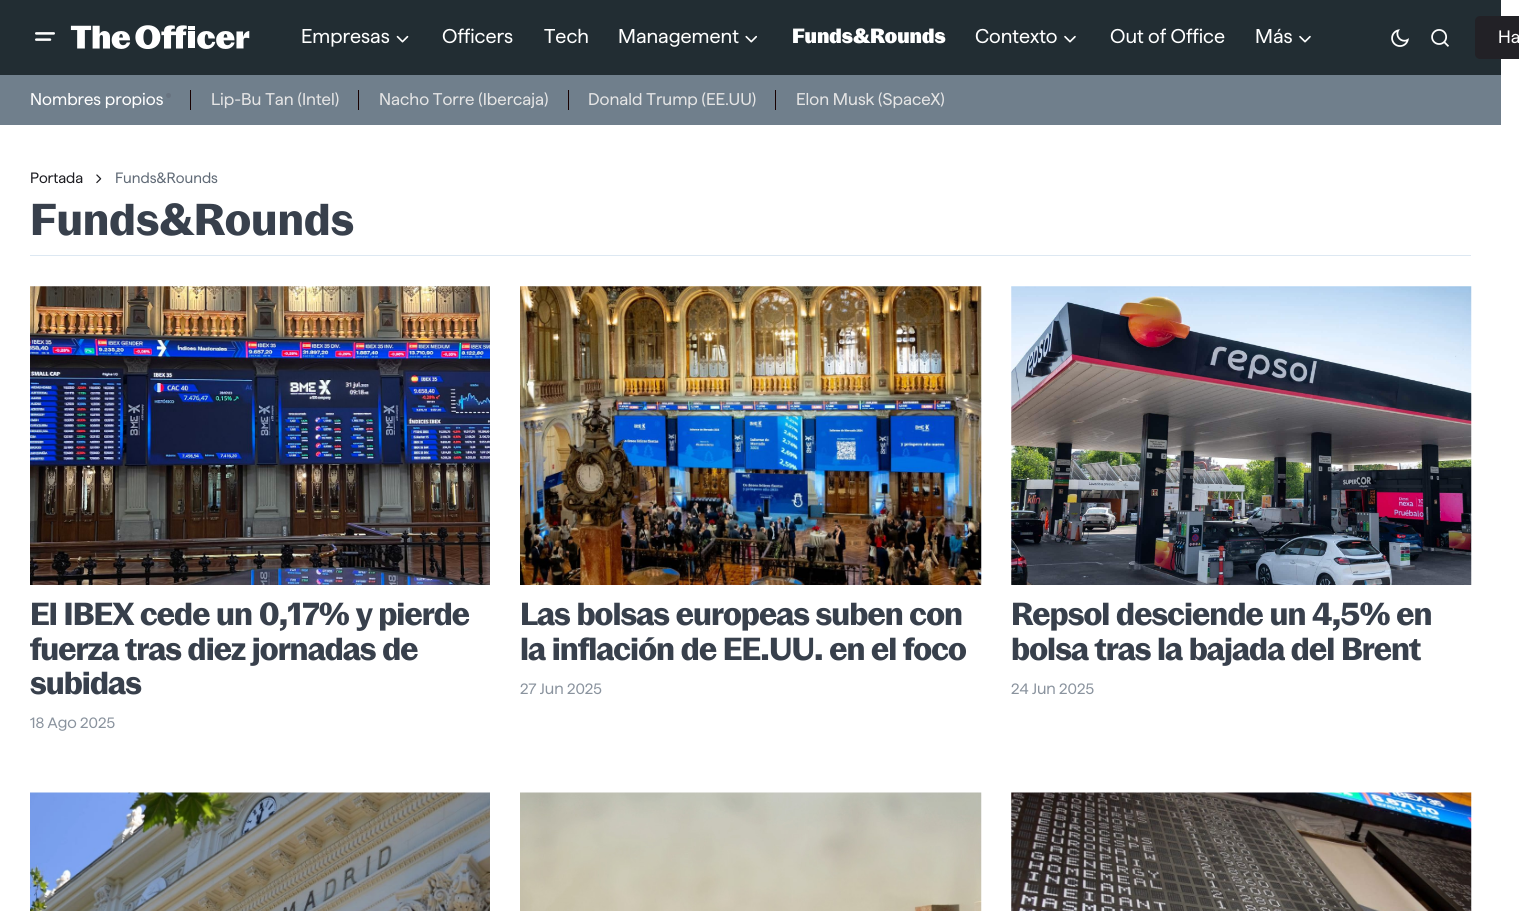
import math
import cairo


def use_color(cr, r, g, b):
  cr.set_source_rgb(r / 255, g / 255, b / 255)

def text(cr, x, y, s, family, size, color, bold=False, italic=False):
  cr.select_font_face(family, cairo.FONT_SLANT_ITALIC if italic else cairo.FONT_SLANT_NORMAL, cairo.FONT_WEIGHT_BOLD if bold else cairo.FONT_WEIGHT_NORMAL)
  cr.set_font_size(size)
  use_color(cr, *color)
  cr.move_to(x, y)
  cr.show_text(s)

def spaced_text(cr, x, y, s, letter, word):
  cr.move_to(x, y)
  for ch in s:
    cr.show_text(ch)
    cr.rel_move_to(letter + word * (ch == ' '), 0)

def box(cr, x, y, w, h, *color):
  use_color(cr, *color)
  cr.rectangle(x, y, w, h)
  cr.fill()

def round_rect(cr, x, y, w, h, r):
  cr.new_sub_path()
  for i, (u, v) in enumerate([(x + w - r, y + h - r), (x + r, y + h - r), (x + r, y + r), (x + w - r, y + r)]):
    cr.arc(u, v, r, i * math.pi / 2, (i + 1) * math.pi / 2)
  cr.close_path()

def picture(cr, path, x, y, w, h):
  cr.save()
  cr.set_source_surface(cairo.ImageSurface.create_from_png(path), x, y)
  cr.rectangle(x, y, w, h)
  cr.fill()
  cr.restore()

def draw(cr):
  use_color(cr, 255, 255, 255)
  cr.paint()
  box(cr, 0, 0, 1501, 75, 34, 45, 51)
  picture(cr, "img_01.png", 35, 32, 20, 9)
  picture(cr, "img_02.png", 70, 25, 180, 24)
  picture(cr, "img_03.png", 396, 35, 13, 8)
  picture(cr, "img_04.png", 745, 35, 12, 8)
  picture(cr, "img_05.png", 1064, 35, 12, 8)
  picture(cr, "img_05.png", 1299, 35, 12, 8)
  picture(cr, "img_06.png", 1391, 29, 18, 18)
  picture(cr, "img_07.png", 1431, 29, 18, 18)
  use_color(cr, 34, 33, 38)
  round_rect(cr, 1475, 16, 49, 43, 5)
  cr.fill()
  box(cr, 0, 75, 1501, 50, 112, 127, 140)
  box(cr, 190, 90, 1, 20, 24, 0, 0)
  use_color(cr, 104, 115, 128)
  cr.arc(168.5, 95.5, 2.5, 0, 2 * math.pi)
  cr.fill()
  box(cr, 358, 90, 1, 20, 24, 0, 0)
  box(cr, 568, 90, 1, 20, 24, 0, 0)
  box(cr, 775, 90, 1, 20, 24, 0, 0)
  picture(cr, "img_08.png", 96, 174, 6, 10)
  box(cr, 30, 255, 1441, 1, 221, 232, 242)
  picture(cr, "img_09.png", 30, 286, 460, 299)
  picture(cr, "img_10.png", 520, 286, 462, 299)
  picture(cr, "img_11.png", 1011, 286, 461, 299)
  picture(cr, "img_12.png", 30, 792, 460, 119)
  picture(cr, "img_13.png", 520, 792, 462, 119)
  picture(cr, "img_14.png", 1011, 792, 461, 119)
  text(cr, 301, 43, "Empresas", "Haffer", 20, (255, 255, 255))
  text(cr, 442, 43, "Officers", "Haffer", 20, (255, 255, 255))
  text(cr, 544, 43, "Tech", "Haffer", 20, (255, 255, 255))
  text(cr, 618, 43, "Management", "Haffer", 20, (255, 255, 255))
  text(cr, 792, 43, "Funds&Rounds", "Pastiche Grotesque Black", 20, (255, 255, 255))
  text(cr, 975, 43, "Contexto", "Haffer", 20, (255, 255, 255))
  text(cr, 1110, 43, "Out of Office", "Haffer", 20, (255, 255, 255))
  text(cr, 1255, 43, "Más", "Haffer", 20, (255, 255, 255))
  text(cr, 1498, 43, "Ha", "Haffer", 18, (255, 255, 255))
  text(cr, 30, 105, "Nombres propios", "Haffer", 17, (255, 255, 255))
  text(cr, 211, 105, "Lip-Bu Tan (Intel)", "Haffer", 17, (229, 229, 229))
  text(cr, 379, 105, "Nacho Torre (Ibercaja)", "Haffer", 17, (229, 229, 229))
  text(cr, 588, 105, "Donald Trump (EE.UU)", "Haffer", 17, (229, 229, 229))
  text(cr, 796, 105, "Elon Musk (SpaceX)", "Haffer", 17, (229, 229, 229))
  text(cr, 30, 183, "Portada", "Haffer", 15, (30, 30, 35))
  text(cr, 115, 183, "Funds&Rounds", "Haffer", 15, (97, 107, 119))
  text(cr, 30, 235, "Funds&Rounds", "Pastiche Grotesque", 43.75, (56, 64, 76), bold=True)
  cr.set_font_size(31.25)
  spaced_text(cr, 30, 625, "El IBEX cede un 0,17% y pierde", -0.9, 0)
  spaced_text(cr, 30, 660, "fuerza tras diez jornadas de", -0.9, 0)
  spaced_text(cr, 30, 694, "subidas", -0.9, 0)
  text(cr, 30, 728, "18 Ago 2025", "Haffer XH", 15, (138, 147, 158))
  cr.select_font_face("Pastiche Grotesque", cairo.FONT_SLANT_NORMAL, cairo.FONT_WEIGHT_BOLD)
  cr.set_font_size(31.25)
  use_color(cr, 56, 64, 76)
  spaced_text(cr, 520, 625, "Las bolsas europeas suben con", -0.9, 0)
  spaced_text(cr, 520, 660, "la inflación de EE.UU. en el foco", -0.9, 0)
  text(cr, 520, 694, "27 Jun 2025", "Haffer XH", 15, (138, 147, 158))
  cr.select_font_face("Pastiche Grotesque", cairo.FONT_SLANT_NORMAL, cairo.FONT_WEIGHT_BOLD)
  cr.set_font_size(31.25)
  use_color(cr, 56, 64, 76)
  spaced_text(cr, 1011, 625, "Repsol desciende un 4,5% en", -0.9, 0)
  spaced_text(cr, 1011, 660, "bolsa tras la bajada del Brent", -0.9, 0)
  text(cr, 1011, 694, "24 Jun 2025", "Haffer XH", 15, (138, 147, 158))


surface = cairo.ImageSurface(cairo.FORMAT_RGB24, 1519, 911)
cr = cairo.Context(surface)
options = cairo.FontOptions()
options.set_hint_metrics(cairo.HINT_METRICS_OFF)
options.set_hint_style(cairo.HINT_STYLE_NONE)
cr.set_font_options(options)
cr.set_miter_limit(4)
draw(cr)
surface.write_to_png("out.png")
